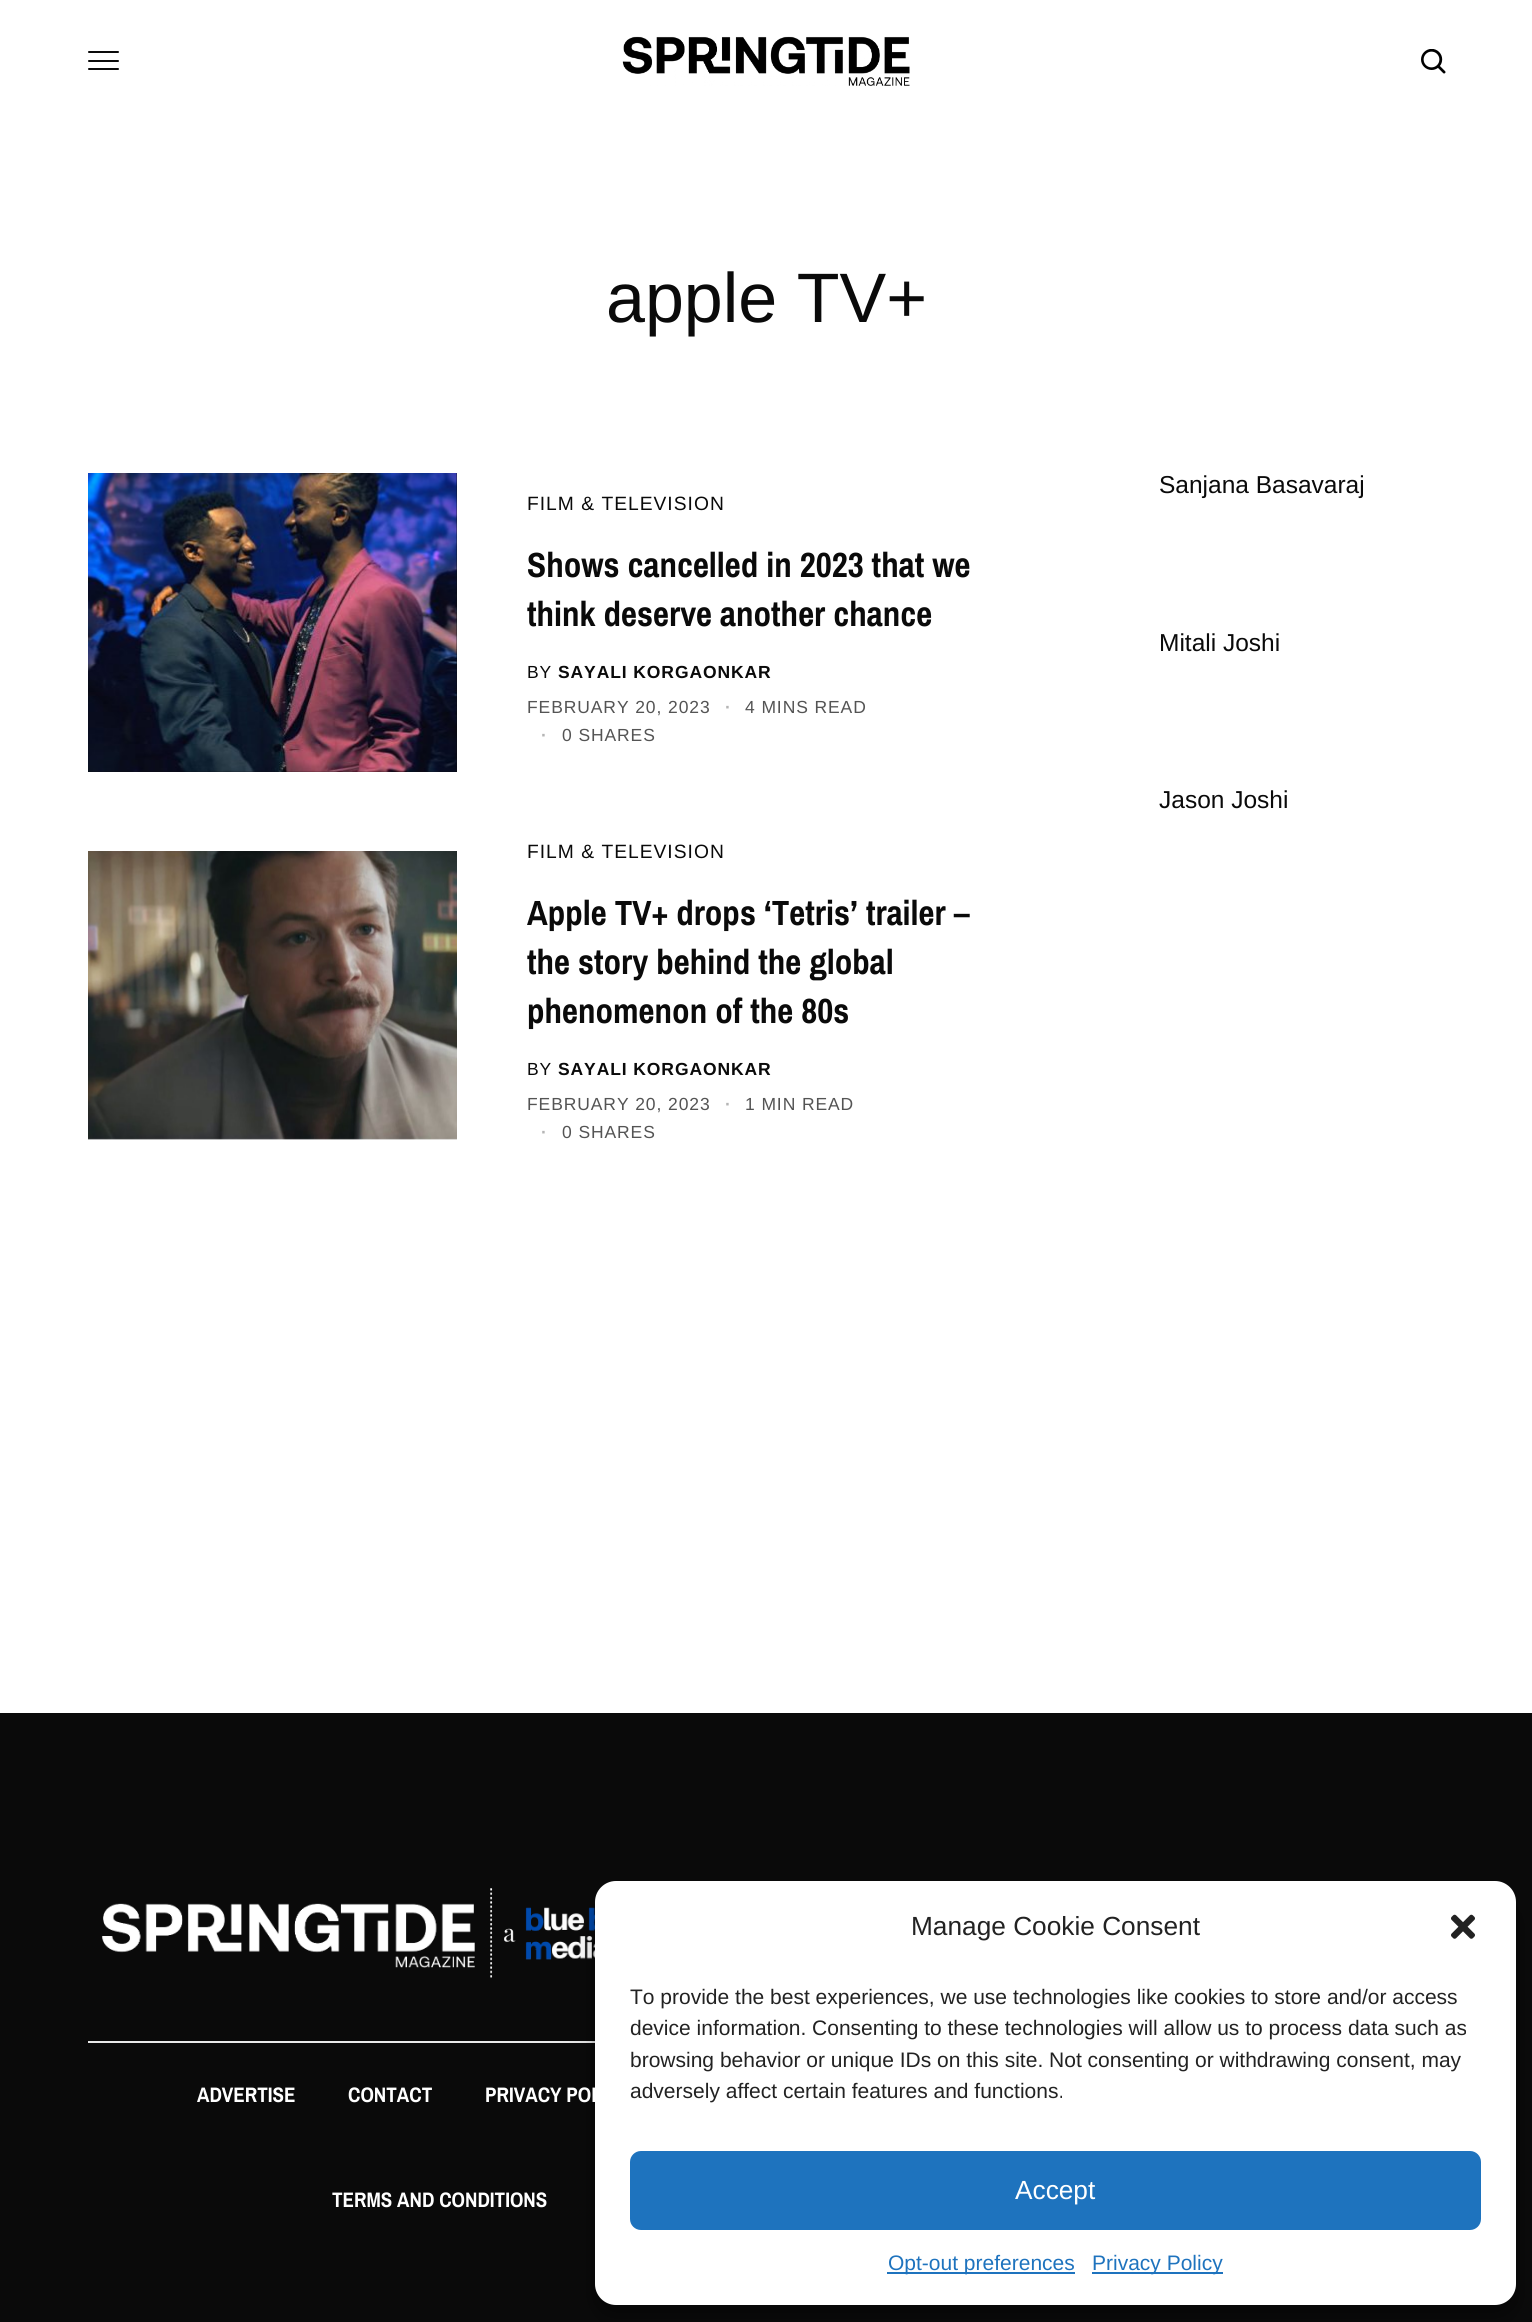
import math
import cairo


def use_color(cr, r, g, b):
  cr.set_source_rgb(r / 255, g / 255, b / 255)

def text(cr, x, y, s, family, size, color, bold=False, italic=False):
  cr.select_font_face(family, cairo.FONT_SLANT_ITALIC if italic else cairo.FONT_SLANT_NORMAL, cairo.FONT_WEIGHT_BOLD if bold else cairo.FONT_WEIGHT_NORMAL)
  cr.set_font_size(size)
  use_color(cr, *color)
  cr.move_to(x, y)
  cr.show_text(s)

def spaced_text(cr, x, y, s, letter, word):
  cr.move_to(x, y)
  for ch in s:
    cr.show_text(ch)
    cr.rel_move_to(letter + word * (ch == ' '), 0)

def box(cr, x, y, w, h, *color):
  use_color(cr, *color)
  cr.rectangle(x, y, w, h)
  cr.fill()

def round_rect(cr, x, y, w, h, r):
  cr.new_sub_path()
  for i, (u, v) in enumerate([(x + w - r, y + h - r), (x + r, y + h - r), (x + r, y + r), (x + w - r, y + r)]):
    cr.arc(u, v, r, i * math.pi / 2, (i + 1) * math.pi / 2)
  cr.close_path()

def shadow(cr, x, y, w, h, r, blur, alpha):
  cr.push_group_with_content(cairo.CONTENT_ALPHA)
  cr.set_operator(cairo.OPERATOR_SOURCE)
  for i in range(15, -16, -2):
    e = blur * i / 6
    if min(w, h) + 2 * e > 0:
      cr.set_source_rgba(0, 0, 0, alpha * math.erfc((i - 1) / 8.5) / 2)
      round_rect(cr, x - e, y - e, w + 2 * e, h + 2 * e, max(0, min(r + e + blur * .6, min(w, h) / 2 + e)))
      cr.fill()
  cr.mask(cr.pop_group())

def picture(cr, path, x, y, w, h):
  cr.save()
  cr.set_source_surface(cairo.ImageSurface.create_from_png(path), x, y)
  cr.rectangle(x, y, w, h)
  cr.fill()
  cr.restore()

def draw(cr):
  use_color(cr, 255, 255, 255)
  cr.paint()
  use_color(cr, 10, 10, 10)
  round_rect(cr, 88, 51, 31, 2, 1)
  cr.fill()
  round_rect(cr, 88, 60, 31, 2, 1)
  cr.fill()
  round_rect(cr, 88, 68, 31, 2, 1)
  cr.fill()
  picture(cr, "img_01.png", 622, 36, 288, 50)
  picture(cr, "img_02.png", 1421, 49, 25, 25)
  box(cr, 88, 473, 369, 299, 10, 10, 10)
  picture(cr, "img_03.png", 88, 473, 369, 299)
  picture(cr, "img_04.png", 88, 851, 369, 289)
  box(cr, 0, 1713, 1532, 609, 10, 10, 10)
  picture(cr, "img_05.png", 101, 1888, 494, 90)
  box(cr, 88, 2041, 507, 2, 233, 233, 233)
  use_color(cr, 0, 0, 0)
  shadow(cr, 595, 1892, 921, 423, 21, 5, 0.23)
  shadow(cr, 595, 1899, 921, 423, 21, 17.5, 0.19)
  use_color(cr, 255, 255, 255)
  round_rect(cr, 595, 1881, 921, 424, 21)
  cr.fill()
  picture(cr, "img_06.png", 1451, 1914, 24, 25)
  use_color(cr, 30, 115, 190)
  round_rect(cr, 631, 2152, 849, 77, 10)
  cr.fill_preserve()
  cr.stroke()
  box(cr, 887, 2272, 188, 2, 30, 115, 190)
  box(cr, 1092, 2272, 131, 2, 30, 115, 190)
  text(cr, 606, 322, "apple TV+", "Liberation Sans", 70, (10, 10, 10))
  cr.set_font_size(19.25)
  spaced_text(cr, 527, 510, "FILM & TELEVISION", 1, 0)
  text(cr, 527, 577, "Shows cancelled in 2023 that we", "Archivo Narrow", 35, (10, 10, 10), bold=True)
  text(cr, 527, 626, "think deserve another chance", "Archivo Narrow", 35, (10, 10, 10), bold=True)
  cr.select_font_face("Liberation Sans")
  cr.set_font_size(17.5)
  spaced_text(cr, 527, 678, "BY", 0.9, 0)
  cr.select_font_face("Liberation Sans", cairo.FONT_SLANT_NORMAL, cairo.FONT_WEIGHT_BOLD)
  spaced_text(cr, 558, 678, "SAYALI KORGAONKAR", 0.9, 0)
  cr.select_font_face("Liberation Sans")
  use_color(cr, 84, 84, 84)
  spaced_text(cr, 527, 713, "FEBRUARY 20, 2023", 0.9, 0)
  cr.select_font_face("Liberation Sans", cairo.FONT_SLANT_NORMAL, cairo.FONT_WEIGHT_BOLD)
  use_color(cr, 181, 181, 181)
  spaced_text(cr, 725, 713, "·", 0.9, 0)
  cr.select_font_face("Liberation Sans")
  use_color(cr, 84, 84, 84)
  spaced_text(cr, 745, 713, "4 MINS READ", 0.9, 0)
  cr.select_font_face("Liberation Sans", cairo.FONT_SLANT_NORMAL, cairo.FONT_WEIGHT_BOLD)
  use_color(cr, 181, 181, 181)
  spaced_text(cr, 541, 741, "·", 0.9, 0)
  cr.select_font_face("Liberation Sans")
  use_color(cr, 84, 84, 84)
  spaced_text(cr, 562, 741, "0 SHARES", 0.9, 0)
  cr.set_font_size(19.25)
  use_color(cr, 10, 10, 10)
  spaced_text(cr, 527, 858, "FILM & TELEVISION", 1, 0)
  text(cr, 527, 925, "Apple TV+ drops ‘Tetris’ trailer –", "Archivo Narrow", 35, (10, 10, 10), bold=True)
  text(cr, 527, 974, "the story behind the global", "Archivo Narrow", 35, (10, 10, 10), bold=True)
  text(cr, 527, 1023, "phenomenon of the 80s", "Archivo Narrow", 35, (10, 10, 10), bold=True)
  cr.select_font_face("Liberation Sans")
  cr.set_font_size(17.5)
  spaced_text(cr, 527, 1075, "BY", 0.9, 0)
  cr.select_font_face("Liberation Sans", cairo.FONT_SLANT_NORMAL, cairo.FONT_WEIGHT_BOLD)
  spaced_text(cr, 558, 1075, "SAYALI KORGAONKAR", 0.9, 0)
  cr.select_font_face("Liberation Sans")
  use_color(cr, 84, 84, 84)
  spaced_text(cr, 527, 1110, "FEBRUARY 20, 2023", 0.9, 0)
  cr.select_font_face("Liberation Sans", cairo.FONT_SLANT_NORMAL, cairo.FONT_WEIGHT_BOLD)
  use_color(cr, 181, 181, 181)
  spaced_text(cr, 725, 1110, "·", 0.9, 0)
  cr.select_font_face("Liberation Sans")
  use_color(cr, 84, 84, 84)
  spaced_text(cr, 745, 1110, "1 MIN READ", 0.9, 0)
  cr.select_font_face("Liberation Sans", cairo.FONT_SLANT_NORMAL, cairo.FONT_WEIGHT_BOLD)
  use_color(cr, 181, 181, 181)
  spaced_text(cr, 541, 1138, "·", 0.9, 0)
  cr.select_font_face("Liberation Sans")
  use_color(cr, 84, 84, 84)
  spaced_text(cr, 562, 1138, "0 SHARES", 0.9, 0)
  text(cr, 1159, 493, "Sanjana Basavaraj", "Liberation Sans", 24.5, (10, 10, 10))
  text(cr, 1159, 651, "Mitali Joshi", "Liberation Sans", 24.5, (10, 10, 10))
  text(cr, 1159, 808, "Jason Joshi", "Liberation Sans", 24.5, (10, 10, 10))
  text(cr, 197, 2102, "ADVERTISE", "Archivo Narrow", 21, (255, 255, 255), bold=True)
  text(cr, 348, 2102, "CONTACT", "Archivo Narrow", 21, (255, 255, 255), bold=True)
  text(cr, 485, 2102, "PRIVACY POL", "Archivo Narrow", 21, (255, 255, 255), bold=True)
  text(cr, 332, 2207, "TERMS AND CONDITIONS", "Archivo Narrow", 21, (255, 255, 255), bold=True)
  text(cr, 911, 1935, "Manage Cookie Consent", "Liberation Sans", 26.25, (34, 34, 34))
  text(cr, 630, 2004, "To provide the best experiences, we use technologies like cookies to store and/or access", "Liberation Sans", 21, (34, 34, 34))
  text(cr, 630, 2035, "device information. Consenting to these technologies will allow us to process data such as", "Liberation Sans", 21, (34, 34, 34))
  text(cr, 630, 2067, "browsing behavior or unique IDs on this site. Not consenting or withdrawing consent, may", "Liberation Sans", 21, (34, 34, 34))
  text(cr, 630, 2098, "adversely affect certain features and functions.", "Liberation Sans", 21, (34, 34, 34))
  text(cr, 1015, 2199, "Accept", "Liberation Sans", 26.25, (255, 255, 255))
  text(cr, 888, 2270, "Opt-out preferences", "Liberation Sans", 21, (30, 115, 190))
  text(cr, 1092, 2270, "Privacy Policy", "Liberation Sans", 21, (30, 115, 190))


surface = cairo.ImageSurface(cairo.FORMAT_RGB24, 1532, 2322)
cr = cairo.Context(surface)
options = cairo.FontOptions()
options.set_hint_metrics(cairo.HINT_METRICS_OFF)
options.set_hint_style(cairo.HINT_STYLE_NONE)
cr.set_font_options(options)
cr.set_miter_limit(4)
draw(cr)
surface.write_to_png("out.png")
